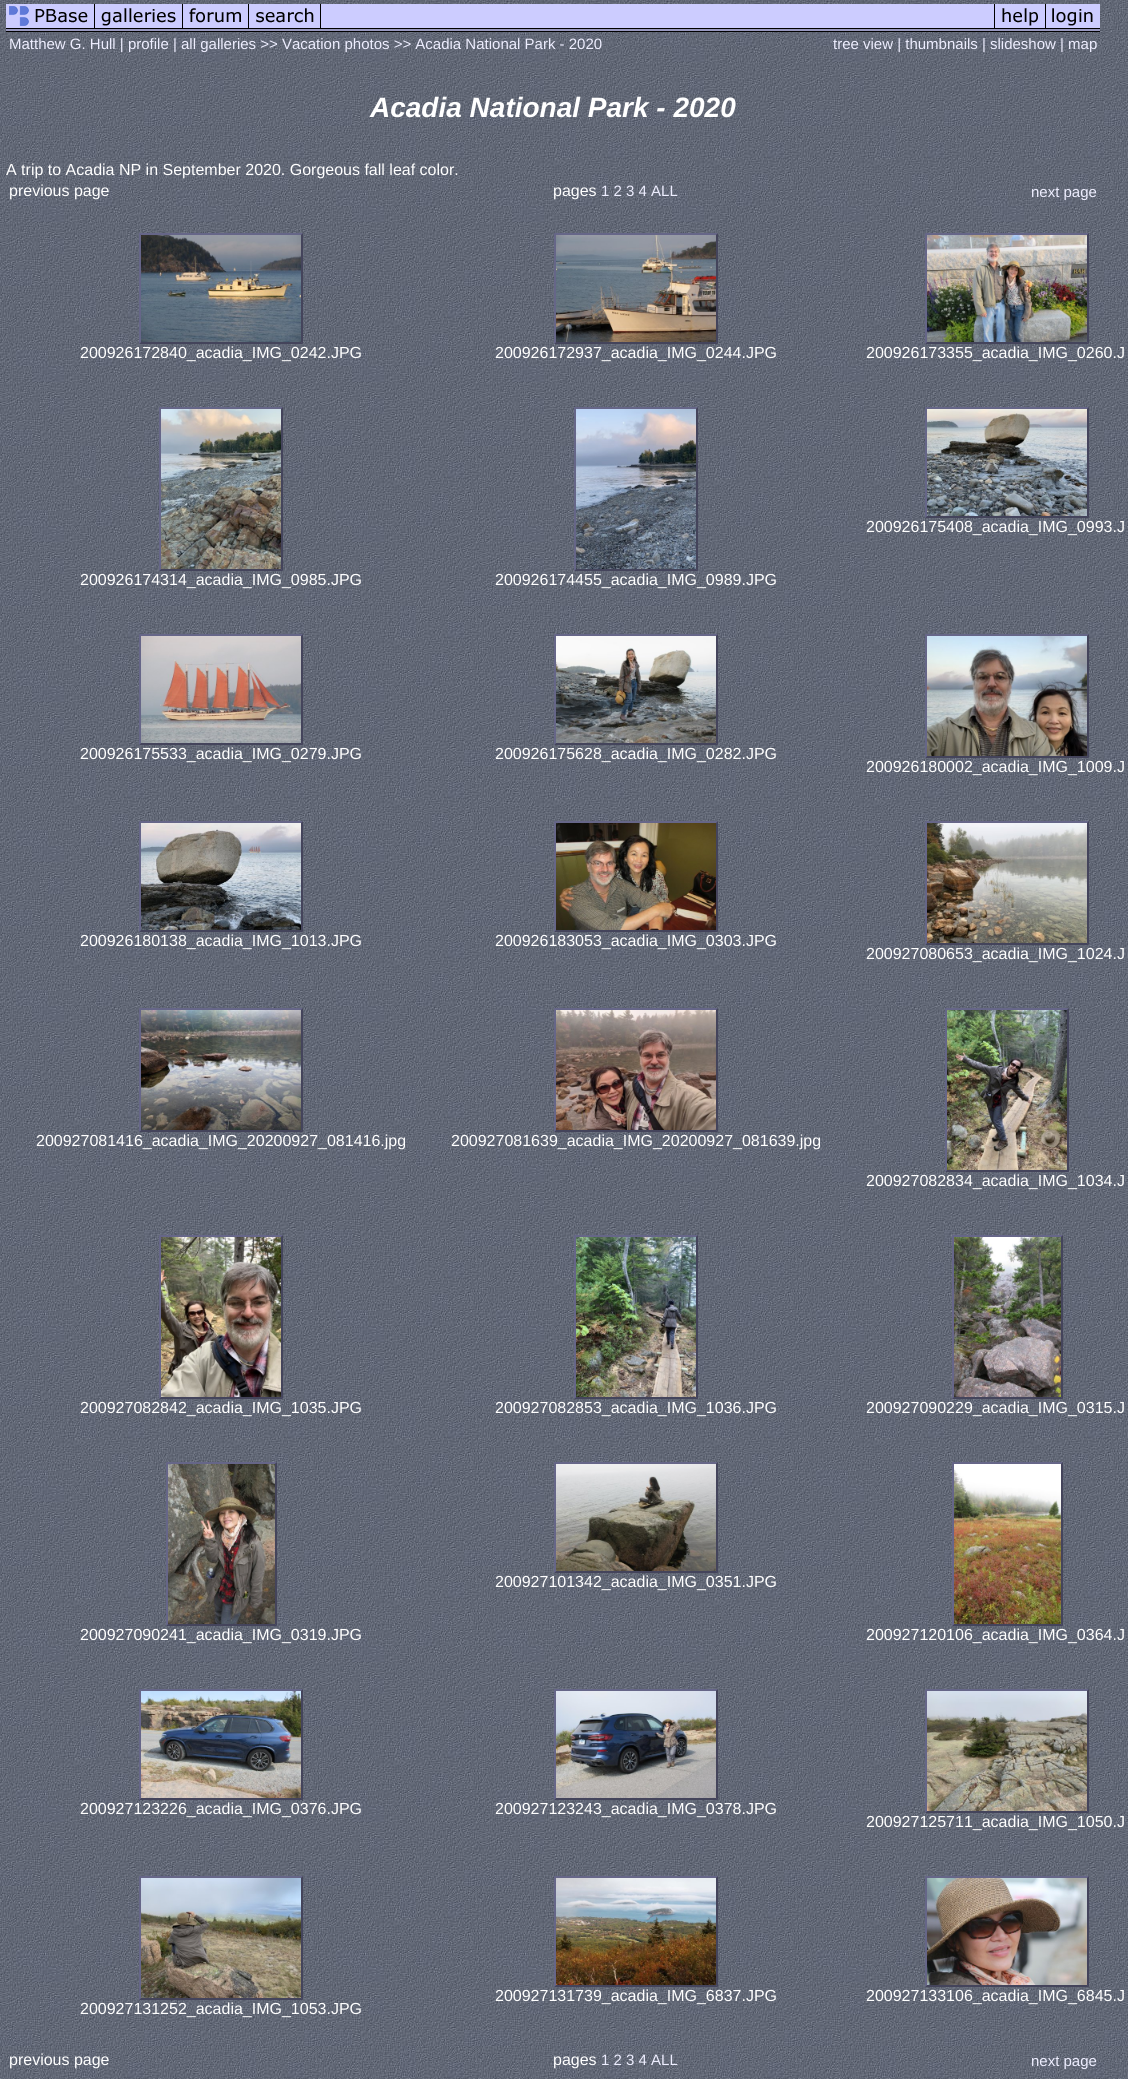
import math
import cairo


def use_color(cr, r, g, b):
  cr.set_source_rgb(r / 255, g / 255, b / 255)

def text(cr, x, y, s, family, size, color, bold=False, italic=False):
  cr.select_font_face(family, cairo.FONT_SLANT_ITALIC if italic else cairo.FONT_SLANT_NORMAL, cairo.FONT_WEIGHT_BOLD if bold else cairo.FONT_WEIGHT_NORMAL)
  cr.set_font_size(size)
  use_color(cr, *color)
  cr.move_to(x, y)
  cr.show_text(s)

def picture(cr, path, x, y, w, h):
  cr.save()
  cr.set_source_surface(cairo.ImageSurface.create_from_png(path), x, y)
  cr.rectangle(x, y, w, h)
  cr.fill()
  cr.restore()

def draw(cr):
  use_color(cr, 255, 255, 255)
  cr.paint()
  picture(cr, "img_01.png", 0, 0, 1128, 2079)
  picture(cr, "img_02.png", 6, 4, 89, 28)
  picture(cr, "img_03.png", 95, 4, 88, 28)
  picture(cr, "img_04.png", 183, 4, 66, 28)
  picture(cr, "img_05.png", 249, 4, 72, 28)
  picture(cr, "img_06.png", 321, 4, 673, 28)
  picture(cr, "img_07.png", 994, 4, 52, 28)
  picture(cr, "img_08.png", 1046, 4, 54, 28)
  use_color(cr, 102, 102, 136)
  cr.new_path()
  cr.move_to(139, 233)
  cr.line_to(303, 233)
  cr.line_to(301, 235)
  cr.line_to(141, 235)
  cr.close_path()
  cr.fill()
  use_color(cr, 68, 68, 91)
  cr.new_path()
  cr.move_to(303, 233)
  cr.line_to(303, 344)
  cr.line_to(301, 342)
  cr.line_to(301, 235)
  cr.close_path()
  cr.fill()
  cr.new_path()
  cr.move_to(303, 344)
  cr.line_to(139, 344)
  cr.line_to(141, 342)
  cr.line_to(301, 342)
  cr.close_path()
  cr.fill()
  use_color(cr, 102, 102, 136)
  cr.new_path()
  cr.move_to(139, 344)
  cr.line_to(139, 233)
  cr.line_to(141, 235)
  cr.line_to(141, 342)
  cr.close_path()
  cr.fill()
  picture(cr, "img_09.png", 141, 235, 160, 107)
  cr.new_path()
  cr.move_to(554, 233)
  cr.line_to(718, 233)
  cr.line_to(716, 235)
  cr.line_to(556, 235)
  cr.close_path()
  cr.fill()
  use_color(cr, 68, 68, 91)
  cr.new_path()
  cr.move_to(718, 233)
  cr.line_to(718, 344)
  cr.line_to(716, 342)
  cr.line_to(716, 235)
  cr.close_path()
  cr.fill()
  cr.new_path()
  cr.move_to(718, 344)
  cr.line_to(554, 344)
  cr.line_to(556, 342)
  cr.line_to(716, 342)
  cr.close_path()
  cr.fill()
  use_color(cr, 102, 102, 136)
  cr.new_path()
  cr.move_to(554, 344)
  cr.line_to(554, 233)
  cr.line_to(556, 235)
  cr.line_to(556, 342)
  cr.close_path()
  cr.fill()
  picture(cr, "img_10.png", 556, 235, 160, 107)
  cr.new_path()
  cr.move_to(925, 233)
  cr.line_to(1089, 233)
  cr.line_to(1087, 235)
  cr.line_to(927, 235)
  cr.close_path()
  cr.fill()
  use_color(cr, 68, 68, 91)
  cr.new_path()
  cr.move_to(1089, 233)
  cr.line_to(1089, 344)
  cr.line_to(1087, 342)
  cr.line_to(1087, 235)
  cr.close_path()
  cr.fill()
  cr.new_path()
  cr.move_to(1089, 344)
  cr.line_to(925, 344)
  cr.line_to(927, 342)
  cr.line_to(1087, 342)
  cr.close_path()
  cr.fill()
  use_color(cr, 102, 102, 136)
  cr.new_path()
  cr.move_to(925, 344)
  cr.line_to(925, 233)
  cr.line_to(927, 235)
  cr.line_to(927, 342)
  cr.close_path()
  cr.fill()
  picture(cr, "img_11.png", 927, 235, 160, 107)
  cr.new_path()
  cr.move_to(925, 407)
  cr.line_to(1089, 407)
  cr.line_to(1087, 409)
  cr.line_to(927, 409)
  cr.close_path()
  cr.fill()
  use_color(cr, 68, 68, 91)
  cr.new_path()
  cr.move_to(1089, 407)
  cr.line_to(1089, 518)
  cr.line_to(1087, 516)
  cr.line_to(1087, 409)
  cr.close_path()
  cr.fill()
  cr.new_path()
  cr.move_to(1089, 518)
  cr.line_to(925, 518)
  cr.line_to(927, 516)
  cr.line_to(1087, 516)
  cr.close_path()
  cr.fill()
  use_color(cr, 102, 102, 136)
  cr.new_path()
  cr.move_to(925, 518)
  cr.line_to(925, 407)
  cr.line_to(927, 409)
  cr.line_to(927, 516)
  cr.close_path()
  cr.fill()
  picture(cr, "img_12.png", 927, 409, 160, 107)
  cr.new_path()
  cr.move_to(159, 407)
  cr.line_to(283, 407)
  cr.line_to(281, 409)
  cr.line_to(161, 409)
  cr.close_path()
  cr.fill()
  use_color(cr, 68, 68, 91)
  cr.new_path()
  cr.move_to(283, 407)
  cr.line_to(283, 571)
  cr.line_to(281, 569)
  cr.line_to(281, 409)
  cr.close_path()
  cr.fill()
  cr.new_path()
  cr.move_to(283, 571)
  cr.line_to(159, 571)
  cr.line_to(161, 569)
  cr.line_to(281, 569)
  cr.close_path()
  cr.fill()
  use_color(cr, 102, 102, 136)
  cr.new_path()
  cr.move_to(159, 571)
  cr.line_to(159, 407)
  cr.line_to(161, 409)
  cr.line_to(161, 569)
  cr.close_path()
  cr.fill()
  picture(cr, "img_13.png", 161, 409, 120, 160)
  cr.new_path()
  cr.move_to(574, 407)
  cr.line_to(698, 407)
  cr.line_to(696, 409)
  cr.line_to(576, 409)
  cr.close_path()
  cr.fill()
  use_color(cr, 68, 68, 91)
  cr.new_path()
  cr.move_to(698, 407)
  cr.line_to(698, 571)
  cr.line_to(696, 569)
  cr.line_to(696, 409)
  cr.close_path()
  cr.fill()
  cr.new_path()
  cr.move_to(698, 571)
  cr.line_to(574, 571)
  cr.line_to(576, 569)
  cr.line_to(696, 569)
  cr.close_path()
  cr.fill()
  use_color(cr, 102, 102, 136)
  cr.new_path()
  cr.move_to(574, 571)
  cr.line_to(574, 407)
  cr.line_to(576, 409)
  cr.line_to(576, 569)
  cr.close_path()
  cr.fill()
  picture(cr, "img_14.png", 576, 409, 120, 160)
  cr.new_path()
  cr.move_to(139, 634)
  cr.line_to(303, 634)
  cr.line_to(301, 636)
  cr.line_to(141, 636)
  cr.close_path()
  cr.fill()
  use_color(cr, 68, 68, 91)
  cr.new_path()
  cr.move_to(303, 634)
  cr.line_to(303, 745)
  cr.line_to(301, 743)
  cr.line_to(301, 636)
  cr.close_path()
  cr.fill()
  cr.new_path()
  cr.move_to(303, 745)
  cr.line_to(139, 745)
  cr.line_to(141, 743)
  cr.line_to(301, 743)
  cr.close_path()
  cr.fill()
  use_color(cr, 102, 102, 136)
  cr.new_path()
  cr.move_to(139, 745)
  cr.line_to(139, 634)
  cr.line_to(141, 636)
  cr.line_to(141, 743)
  cr.close_path()
  cr.fill()
  picture(cr, "img_15.png", 141, 636, 160, 107)
  cr.new_path()
  cr.move_to(554, 634)
  cr.line_to(718, 634)
  cr.line_to(716, 636)
  cr.line_to(556, 636)
  cr.close_path()
  cr.fill()
  use_color(cr, 68, 68, 91)
  cr.new_path()
  cr.move_to(718, 634)
  cr.line_to(718, 745)
  cr.line_to(716, 743)
  cr.line_to(716, 636)
  cr.close_path()
  cr.fill()
  cr.new_path()
  cr.move_to(718, 745)
  cr.line_to(554, 745)
  cr.line_to(556, 743)
  cr.line_to(716, 743)
  cr.close_path()
  cr.fill()
  use_color(cr, 102, 102, 136)
  cr.new_path()
  cr.move_to(554, 745)
  cr.line_to(554, 634)
  cr.line_to(556, 636)
  cr.line_to(556, 743)
  cr.close_path()
  cr.fill()
  picture(cr, "img_16.png", 556, 636, 160, 107)
  cr.new_path()
  cr.move_to(925, 634)
  cr.line_to(1089, 634)
  cr.line_to(1087, 636)
  cr.line_to(927, 636)
  cr.close_path()
  cr.fill()
  use_color(cr, 68, 68, 91)
  cr.new_path()
  cr.move_to(1089, 634)
  cr.line_to(1089, 758)
  cr.line_to(1087, 756)
  cr.line_to(1087, 636)
  cr.close_path()
  cr.fill()
  cr.new_path()
  cr.move_to(1089, 758)
  cr.line_to(925, 758)
  cr.line_to(927, 756)
  cr.line_to(1087, 756)
  cr.close_path()
  cr.fill()
  use_color(cr, 102, 102, 136)
  cr.new_path()
  cr.move_to(925, 758)
  cr.line_to(925, 634)
  cr.line_to(927, 636)
  cr.line_to(927, 756)
  cr.close_path()
  cr.fill()
  picture(cr, "img_17.png", 927, 636, 160, 120)
  cr.new_path()
  cr.move_to(139, 821)
  cr.line_to(303, 821)
  cr.line_to(301, 823)
  cr.line_to(141, 823)
  cr.close_path()
  cr.fill()
  use_color(cr, 68, 68, 91)
  cr.new_path()
  cr.move_to(303, 821)
  cr.line_to(303, 932)
  cr.line_to(301, 930)
  cr.line_to(301, 823)
  cr.close_path()
  cr.fill()
  cr.new_path()
  cr.move_to(303, 932)
  cr.line_to(139, 932)
  cr.line_to(141, 930)
  cr.line_to(301, 930)
  cr.close_path()
  cr.fill()
  use_color(cr, 102, 102, 136)
  cr.new_path()
  cr.move_to(139, 932)
  cr.line_to(139, 821)
  cr.line_to(141, 823)
  cr.line_to(141, 930)
  cr.close_path()
  cr.fill()
  picture(cr, "img_18.png", 141, 823, 160, 107)
  cr.new_path()
  cr.move_to(554, 821)
  cr.line_to(718, 821)
  cr.line_to(716, 823)
  cr.line_to(556, 823)
  cr.close_path()
  cr.fill()
  use_color(cr, 68, 68, 91)
  cr.new_path()
  cr.move_to(718, 821)
  cr.line_to(718, 932)
  cr.line_to(716, 930)
  cr.line_to(716, 823)
  cr.close_path()
  cr.fill()
  cr.new_path()
  cr.move_to(718, 932)
  cr.line_to(554, 932)
  cr.line_to(556, 930)
  cr.line_to(716, 930)
  cr.close_path()
  cr.fill()
  use_color(cr, 102, 102, 136)
  cr.new_path()
  cr.move_to(554, 932)
  cr.line_to(554, 821)
  cr.line_to(556, 823)
  cr.line_to(556, 930)
  cr.close_path()
  cr.fill()
  picture(cr, "img_19.png", 556, 823, 160, 107)
  cr.new_path()
  cr.move_to(925, 821)
  cr.line_to(1089, 821)
  cr.line_to(1087, 823)
  cr.line_to(927, 823)
  cr.close_path()
  cr.fill()
  use_color(cr, 68, 68, 91)
  cr.new_path()
  cr.move_to(1089, 821)
  cr.line_to(1089, 945)
  cr.line_to(1087, 943)
  cr.line_to(1087, 823)
  cr.close_path()
  cr.fill()
  cr.new_path()
  cr.move_to(1089, 945)
  cr.line_to(925, 945)
  cr.line_to(927, 943)
  cr.line_to(1087, 943)
  cr.close_path()
  cr.fill()
  use_color(cr, 102, 102, 136)
  cr.new_path()
  cr.move_to(925, 945)
  cr.line_to(925, 821)
  cr.line_to(927, 823)
  cr.line_to(927, 943)
  cr.close_path()
  cr.fill()
  picture(cr, "img_20.png", 927, 823, 160, 120)
  cr.new_path()
  cr.move_to(139, 1008)
  cr.line_to(303, 1008)
  cr.line_to(301, 1010)
  cr.line_to(141, 1010)
  cr.close_path()
  cr.fill()
  use_color(cr, 68, 68, 91)
  cr.new_path()
  cr.move_to(303, 1008)
  cr.line_to(303, 1132)
  cr.line_to(301, 1130)
  cr.line_to(301, 1010)
  cr.close_path()
  cr.fill()
  cr.new_path()
  cr.move_to(303, 1132)
  cr.line_to(139, 1132)
  cr.line_to(141, 1130)
  cr.line_to(301, 1130)
  cr.close_path()
  cr.fill()
  use_color(cr, 102, 102, 136)
  cr.new_path()
  cr.move_to(139, 1132)
  cr.line_to(139, 1008)
  cr.line_to(141, 1010)
  cr.line_to(141, 1130)
  cr.close_path()
  cr.fill()
  picture(cr, "img_21.png", 141, 1010, 160, 120)
  cr.new_path()
  cr.move_to(554, 1008)
  cr.line_to(718, 1008)
  cr.line_to(716, 1010)
  cr.line_to(556, 1010)
  cr.close_path()
  cr.fill()
  use_color(cr, 68, 68, 91)
  cr.new_path()
  cr.move_to(718, 1008)
  cr.line_to(718, 1132)
  cr.line_to(716, 1130)
  cr.line_to(716, 1010)
  cr.close_path()
  cr.fill()
  cr.new_path()
  cr.move_to(718, 1132)
  cr.line_to(554, 1132)
  cr.line_to(556, 1130)
  cr.line_to(716, 1130)
  cr.close_path()
  cr.fill()
  use_color(cr, 102, 102, 136)
  cr.new_path()
  cr.move_to(554, 1132)
  cr.line_to(554, 1008)
  cr.line_to(556, 1010)
  cr.line_to(556, 1130)
  cr.close_path()
  cr.fill()
  picture(cr, "img_22.png", 556, 1010, 160, 120)
  cr.new_path()
  cr.move_to(945, 1008)
  cr.line_to(1069, 1008)
  cr.line_to(1067, 1010)
  cr.line_to(947, 1010)
  cr.close_path()
  cr.fill()
  use_color(cr, 68, 68, 91)
  cr.new_path()
  cr.move_to(1069, 1008)
  cr.line_to(1069, 1172)
  cr.line_to(1067, 1170)
  cr.line_to(1067, 1010)
  cr.close_path()
  cr.fill()
  cr.new_path()
  cr.move_to(1069, 1172)
  cr.line_to(945, 1172)
  cr.line_to(947, 1170)
  cr.line_to(1067, 1170)
  cr.close_path()
  cr.fill()
  use_color(cr, 102, 102, 136)
  cr.new_path()
  cr.move_to(945, 1172)
  cr.line_to(945, 1008)
  cr.line_to(947, 1010)
  cr.line_to(947, 1170)
  cr.close_path()
  cr.fill()
  picture(cr, "img_23.png", 947, 1010, 120, 160)
  cr.new_path()
  cr.move_to(159, 1235)
  cr.line_to(283, 1235)
  cr.line_to(281, 1237)
  cr.line_to(161, 1237)
  cr.close_path()
  cr.fill()
  use_color(cr, 68, 68, 91)
  cr.new_path()
  cr.move_to(283, 1235)
  cr.line_to(283, 1399)
  cr.line_to(281, 1397)
  cr.line_to(281, 1237)
  cr.close_path()
  cr.fill()
  cr.new_path()
  cr.move_to(283, 1399)
  cr.line_to(159, 1399)
  cr.line_to(161, 1397)
  cr.line_to(281, 1397)
  cr.close_path()
  cr.fill()
  use_color(cr, 102, 102, 136)
  cr.new_path()
  cr.move_to(159, 1399)
  cr.line_to(159, 1235)
  cr.line_to(161, 1237)
  cr.line_to(161, 1397)
  cr.close_path()
  cr.fill()
  picture(cr, "img_24.png", 161, 1237, 120, 160)
  cr.new_path()
  cr.move_to(574, 1235)
  cr.line_to(698, 1235)
  cr.line_to(696, 1237)
  cr.line_to(576, 1237)
  cr.close_path()
  cr.fill()
  use_color(cr, 68, 68, 91)
  cr.new_path()
  cr.move_to(698, 1235)
  cr.line_to(698, 1399)
  cr.line_to(696, 1397)
  cr.line_to(696, 1237)
  cr.close_path()
  cr.fill()
  cr.new_path()
  cr.move_to(698, 1399)
  cr.line_to(574, 1399)
  cr.line_to(576, 1397)
  cr.line_to(696, 1397)
  cr.close_path()
  cr.fill()
  use_color(cr, 102, 102, 136)
  cr.new_path()
  cr.move_to(574, 1399)
  cr.line_to(574, 1235)
  cr.line_to(576, 1237)
  cr.line_to(576, 1397)
  cr.close_path()
  cr.fill()
  picture(cr, "img_25.png", 576, 1237, 120, 160)
  cr.new_path()
  cr.move_to(952, 1235)
  cr.line_to(1063, 1235)
  cr.line_to(1061, 1237)
  cr.line_to(954, 1237)
  cr.close_path()
  cr.fill()
  use_color(cr, 68, 68, 91)
  cr.new_path()
  cr.move_to(1063, 1235)
  cr.line_to(1063, 1399)
  cr.line_to(1061, 1397)
  cr.line_to(1061, 1237)
  cr.close_path()
  cr.fill()
  cr.new_path()
  cr.move_to(1063, 1399)
  cr.line_to(952, 1399)
  cr.line_to(954, 1397)
  cr.line_to(1061, 1397)
  cr.close_path()
  cr.fill()
  use_color(cr, 102, 102, 136)
  cr.new_path()
  cr.move_to(952, 1399)
  cr.line_to(952, 1235)
  cr.line_to(954, 1237)
  cr.line_to(954, 1397)
  cr.close_path()
  cr.fill()
  picture(cr, "img_26.png", 954, 1237, 107, 160)
  cr.new_path()
  cr.move_to(554, 1462)
  cr.line_to(718, 1462)
  cr.line_to(716, 1464)
  cr.line_to(556, 1464)
  cr.close_path()
  cr.fill()
  use_color(cr, 68, 68, 91)
  cr.new_path()
  cr.move_to(718, 1462)
  cr.line_to(718, 1573)
  cr.line_to(716, 1571)
  cr.line_to(716, 1464)
  cr.close_path()
  cr.fill()
  cr.new_path()
  cr.move_to(718, 1573)
  cr.line_to(554, 1573)
  cr.line_to(556, 1571)
  cr.line_to(716, 1571)
  cr.close_path()
  cr.fill()
  use_color(cr, 102, 102, 136)
  cr.new_path()
  cr.move_to(554, 1573)
  cr.line_to(554, 1462)
  cr.line_to(556, 1464)
  cr.line_to(556, 1571)
  cr.close_path()
  cr.fill()
  picture(cr, "img_27.png", 556, 1464, 160, 107)
  cr.new_path()
  cr.move_to(166, 1462)
  cr.line_to(277, 1462)
  cr.line_to(275, 1464)
  cr.line_to(168, 1464)
  cr.close_path()
  cr.fill()
  use_color(cr, 68, 68, 91)
  cr.new_path()
  cr.move_to(277, 1462)
  cr.line_to(277, 1626)
  cr.line_to(275, 1624)
  cr.line_to(275, 1464)
  cr.close_path()
  cr.fill()
  cr.new_path()
  cr.move_to(277, 1626)
  cr.line_to(166, 1626)
  cr.line_to(168, 1624)
  cr.line_to(275, 1624)
  cr.close_path()
  cr.fill()
  use_color(cr, 102, 102, 136)
  cr.new_path()
  cr.move_to(166, 1626)
  cr.line_to(166, 1462)
  cr.line_to(168, 1464)
  cr.line_to(168, 1624)
  cr.close_path()
  cr.fill()
  picture(cr, "img_28.png", 168, 1464, 107, 160)
  cr.new_path()
  cr.move_to(952, 1462)
  cr.line_to(1063, 1462)
  cr.line_to(1061, 1464)
  cr.line_to(954, 1464)
  cr.close_path()
  cr.fill()
  use_color(cr, 68, 68, 91)
  cr.new_path()
  cr.move_to(1063, 1462)
  cr.line_to(1063, 1626)
  cr.line_to(1061, 1624)
  cr.line_to(1061, 1464)
  cr.close_path()
  cr.fill()
  cr.new_path()
  cr.move_to(1063, 1626)
  cr.line_to(952, 1626)
  cr.line_to(954, 1624)
  cr.line_to(1061, 1624)
  cr.close_path()
  cr.fill()
  use_color(cr, 102, 102, 136)
  cr.new_path()
  cr.move_to(952, 1626)
  cr.line_to(952, 1462)
  cr.line_to(954, 1464)
  cr.line_to(954, 1624)
  cr.close_path()
  cr.fill()
  picture(cr, "img_29.png", 954, 1464, 107, 160)
  cr.new_path()
  cr.move_to(139, 1689)
  cr.line_to(303, 1689)
  cr.line_to(301, 1691)
  cr.line_to(141, 1691)
  cr.close_path()
  cr.fill()
  use_color(cr, 68, 68, 91)
  cr.new_path()
  cr.move_to(303, 1689)
  cr.line_to(303, 1800)
  cr.line_to(301, 1798)
  cr.line_to(301, 1691)
  cr.close_path()
  cr.fill()
  cr.new_path()
  cr.move_to(303, 1800)
  cr.line_to(139, 1800)
  cr.line_to(141, 1798)
  cr.line_to(301, 1798)
  cr.close_path()
  cr.fill()
  use_color(cr, 102, 102, 136)
  cr.new_path()
  cr.move_to(139, 1800)
  cr.line_to(139, 1689)
  cr.line_to(141, 1691)
  cr.line_to(141, 1798)
  cr.close_path()
  cr.fill()
  picture(cr, "img_30.png", 141, 1691, 160, 107)
  cr.new_path()
  cr.move_to(554, 1689)
  cr.line_to(718, 1689)
  cr.line_to(716, 1691)
  cr.line_to(556, 1691)
  cr.close_path()
  cr.fill()
  use_color(cr, 68, 68, 91)
  cr.new_path()
  cr.move_to(718, 1689)
  cr.line_to(718, 1800)
  cr.line_to(716, 1798)
  cr.line_to(716, 1691)
  cr.close_path()
  cr.fill()
  cr.new_path()
  cr.move_to(718, 1800)
  cr.line_to(554, 1800)
  cr.line_to(556, 1798)
  cr.line_to(716, 1798)
  cr.close_path()
  cr.fill()
  use_color(cr, 102, 102, 136)
  cr.new_path()
  cr.move_to(554, 1800)
  cr.line_to(554, 1689)
  cr.line_to(556, 1691)
  cr.line_to(556, 1798)
  cr.close_path()
  cr.fill()
  picture(cr, "img_31.png", 556, 1691, 160, 107)
  cr.new_path()
  cr.move_to(925, 1689)
  cr.line_to(1089, 1689)
  cr.line_to(1087, 1691)
  cr.line_to(927, 1691)
  cr.close_path()
  cr.fill()
  use_color(cr, 68, 68, 91)
  cr.new_path()
  cr.move_to(1089, 1689)
  cr.line_to(1089, 1813)
  cr.line_to(1087, 1811)
  cr.line_to(1087, 1691)
  cr.close_path()
  cr.fill()
  cr.new_path()
  cr.move_to(1089, 1813)
  cr.line_to(925, 1813)
  cr.line_to(927, 1811)
  cr.line_to(1087, 1811)
  cr.close_path()
  cr.fill()
  use_color(cr, 102, 102, 136)
  cr.new_path()
  cr.move_to(925, 1813)
  cr.line_to(925, 1689)
  cr.line_to(927, 1691)
  cr.line_to(927, 1811)
  cr.close_path()
  cr.fill()
  picture(cr, "img_32.png", 927, 1691, 160, 120)
  cr.new_path()
  cr.move_to(554, 1876)
  cr.line_to(718, 1876)
  cr.line_to(716, 1878)
  cr.line_to(556, 1878)
  cr.close_path()
  cr.fill()
  use_color(cr, 68, 68, 91)
  cr.new_path()
  cr.move_to(718, 1876)
  cr.line_to(718, 1987)
  cr.line_to(716, 1985)
  cr.line_to(716, 1878)
  cr.close_path()
  cr.fill()
  cr.new_path()
  cr.move_to(718, 1987)
  cr.line_to(554, 1987)
  cr.line_to(556, 1985)
  cr.line_to(716, 1985)
  cr.close_path()
  cr.fill()
  use_color(cr, 102, 102, 136)
  cr.new_path()
  cr.move_to(554, 1987)
  cr.line_to(554, 1876)
  cr.line_to(556, 1878)
  cr.line_to(556, 1985)
  cr.close_path()
  cr.fill()
  picture(cr, "img_33.png", 556, 1878, 160, 107)
  cr.new_path()
  cr.move_to(925, 1876)
  cr.line_to(1089, 1876)
  cr.line_to(1087, 1878)
  cr.line_to(927, 1878)
  cr.close_path()
  cr.fill()
  use_color(cr, 68, 68, 91)
  cr.new_path()
  cr.move_to(1089, 1876)
  cr.line_to(1089, 1987)
  cr.line_to(1087, 1985)
  cr.line_to(1087, 1878)
  cr.close_path()
  cr.fill()
  cr.new_path()
  cr.move_to(1089, 1987)
  cr.line_to(925, 1987)
  cr.line_to(927, 1985)
  cr.line_to(1087, 1985)
  cr.close_path()
  cr.fill()
  use_color(cr, 102, 102, 136)
  cr.new_path()
  cr.move_to(925, 1987)
  cr.line_to(925, 1876)
  cr.line_to(927, 1878)
  cr.line_to(927, 1985)
  cr.close_path()
  cr.fill()
  picture(cr, "img_34.png", 927, 1878, 160, 107)
  cr.new_path()
  cr.move_to(139, 1876)
  cr.line_to(303, 1876)
  cr.line_to(301, 1878)
  cr.line_to(141, 1878)
  cr.close_path()
  cr.fill()
  use_color(cr, 68, 68, 91)
  cr.new_path()
  cr.move_to(303, 1876)
  cr.line_to(303, 2000)
  cr.line_to(301, 1998)
  cr.line_to(301, 1878)
  cr.close_path()
  cr.fill()
  cr.new_path()
  cr.move_to(303, 2000)
  cr.line_to(139, 2000)
  cr.line_to(141, 1998)
  cr.line_to(301, 1998)
  cr.close_path()
  cr.fill()
  use_color(cr, 102, 102, 136)
  cr.new_path()
  cr.move_to(139, 2000)
  cr.line_to(139, 1876)
  cr.line_to(141, 1878)
  cr.line_to(141, 1998)
  cr.close_path()
  cr.fill()
  picture(cr, "img_35.png", 141, 1878, 160, 120)
  text(cr, 9, 49, "Matthew G. Hull | profile | all galleries >> Vacation photos >> Acadia National Park - 2020", "Liberation Sans", 15, (238, 238, 255))
  text(cr, 833, 49, "tree view | thumbnails | slideshow | map", "Liberation Sans", 15, (238, 238, 255))
  text(cr, 370, 117, "Acadia National Park - 2020", "Liberation Sans", 28, (255, 255, 255), bold=True, italic=True)
  text(cr, 6, 175, "A trip to Acadia NP in September 2020. Gorgeous fall leaf color.", "Liberation Sans", 16, (255, 255, 255))
  text(cr, 9, 196, "previous page", "Liberation Sans", 16, (255, 255, 255))
  text(cr, 553, 196, "pages", "Liberation Sans", 16, (255, 255, 255))
  text(cr, 601, 196, "1 2 3 4 ALL", "Liberation Sans", 15, (238, 238, 255))
  text(cr, 1031, 197, "next page", "Liberation Sans", 15, (238, 238, 255))
  text(cr, 80, 358, "200926172840_acadia_IMG_0242.JPG", "Liberation Sans", 16, (255, 255, 255))
  text(cr, 495, 358, "200926172937_acadia_IMG_0244.JPG", "Liberation Sans", 16, (255, 255, 255))
  text(cr, 866, 358, "200926173355_acadia_IMG_0260.J", "Liberation Sans", 16, (255, 255, 255))
  text(cr, 866, 532, "200926175408_acadia_IMG_0993.J", "Liberation Sans", 16, (255, 255, 255))
  text(cr, 80, 585, "200926174314_acadia_IMG_0985.JPG", "Liberation Sans", 16, (255, 255, 255))
  text(cr, 495, 585, "200926174455_acadia_IMG_0989.JPG", "Liberation Sans", 16, (255, 255, 255))
  text(cr, 80, 759, "200926175533_acadia_IMG_0279.JPG", "Liberation Sans", 16, (255, 255, 255))
  text(cr, 495, 759, "200926175628_acadia_IMG_0282.JPG", "Liberation Sans", 16, (255, 255, 255))
  text(cr, 866, 772, "200926180002_acadia_IMG_1009.J", "Liberation Sans", 16, (255, 255, 255))
  text(cr, 80, 946, "200926180138_acadia_IMG_1013.JPG", "Liberation Sans", 16, (255, 255, 255))
  text(cr, 495, 946, "200926183053_acadia_IMG_0303.JPG", "Liberation Sans", 16, (255, 255, 255))
  text(cr, 866, 959, "200927080653_acadia_IMG_1024.J", "Liberation Sans", 16, (255, 255, 255))
  text(cr, 36, 1146, "200927081416_acadia_IMG_20200927_081416.jpg", "Liberation Sans", 16, (255, 255, 255))
  text(cr, 451, 1146, "200927081639_acadia_IMG_20200927_081639.jpg", "Liberation Sans", 16, (255, 255, 255))
  text(cr, 866, 1186, "200927082834_acadia_IMG_1034.J", "Liberation Sans", 16, (255, 255, 255))
  text(cr, 80, 1413, "200927082842_acadia_IMG_1035.JPG", "Liberation Sans", 16, (255, 255, 255))
  text(cr, 495, 1413, "200927082853_acadia_IMG_1036.JPG", "Liberation Sans", 16, (255, 255, 255))
  text(cr, 866, 1413, "200927090229_acadia_IMG_0315.J", "Liberation Sans", 16, (255, 255, 255))
  text(cr, 495, 1587, "200927101342_acadia_IMG_0351.JPG", "Liberation Sans", 16, (255, 255, 255))
  text(cr, 80, 1640, "200927090241_acadia_IMG_0319.JPG", "Liberation Sans", 16, (255, 255, 255))
  text(cr, 866, 1640, "200927120106_acadia_IMG_0364.J", "Liberation Sans", 16, (255, 255, 255))
  text(cr, 80, 1814, "200927123226_acadia_IMG_0376.JPG", "Liberation Sans", 16, (255, 255, 255))
  text(cr, 495, 1814, "200927123243_acadia_IMG_0378.JPG", "Liberation Sans", 16, (255, 255, 255))
  text(cr, 866, 1827, "200927125711_acadia_IMG_1050.J", "Liberation Sans", 16, (255, 255, 255))
  text(cr, 495, 2001, "200927131739_acadia_IMG_6837.JPG", "Liberation Sans", 16, (255, 255, 255))
  text(cr, 866, 2001, "200927133106_acadia_IMG_6845.J", "Liberation Sans", 16, (255, 255, 255))
  text(cr, 80, 2014, "200927131252_acadia_IMG_1053.JPG", "Liberation Sans", 16, (255, 255, 255))
  text(cr, 9, 2065, "previous page", "Liberation Sans", 16, (255, 255, 255))
  text(cr, 553, 2065, "pages", "Liberation Sans", 16, (255, 255, 255))
  text(cr, 601, 2065, "1 2 3 4 ALL", "Liberation Sans", 15, (238, 238, 255))
  text(cr, 1031, 2066, "next page", "Liberation Sans", 15, (238, 238, 255))


surface = cairo.ImageSurface(cairo.FORMAT_RGB24, 1128, 2079)
cr = cairo.Context(surface)
options = cairo.FontOptions()
options.set_hint_metrics(cairo.HINT_METRICS_OFF)
options.set_hint_style(cairo.HINT_STYLE_NONE)
cr.set_font_options(options)
cr.set_miter_limit(4)
draw(cr)
surface.write_to_png("out.png")
